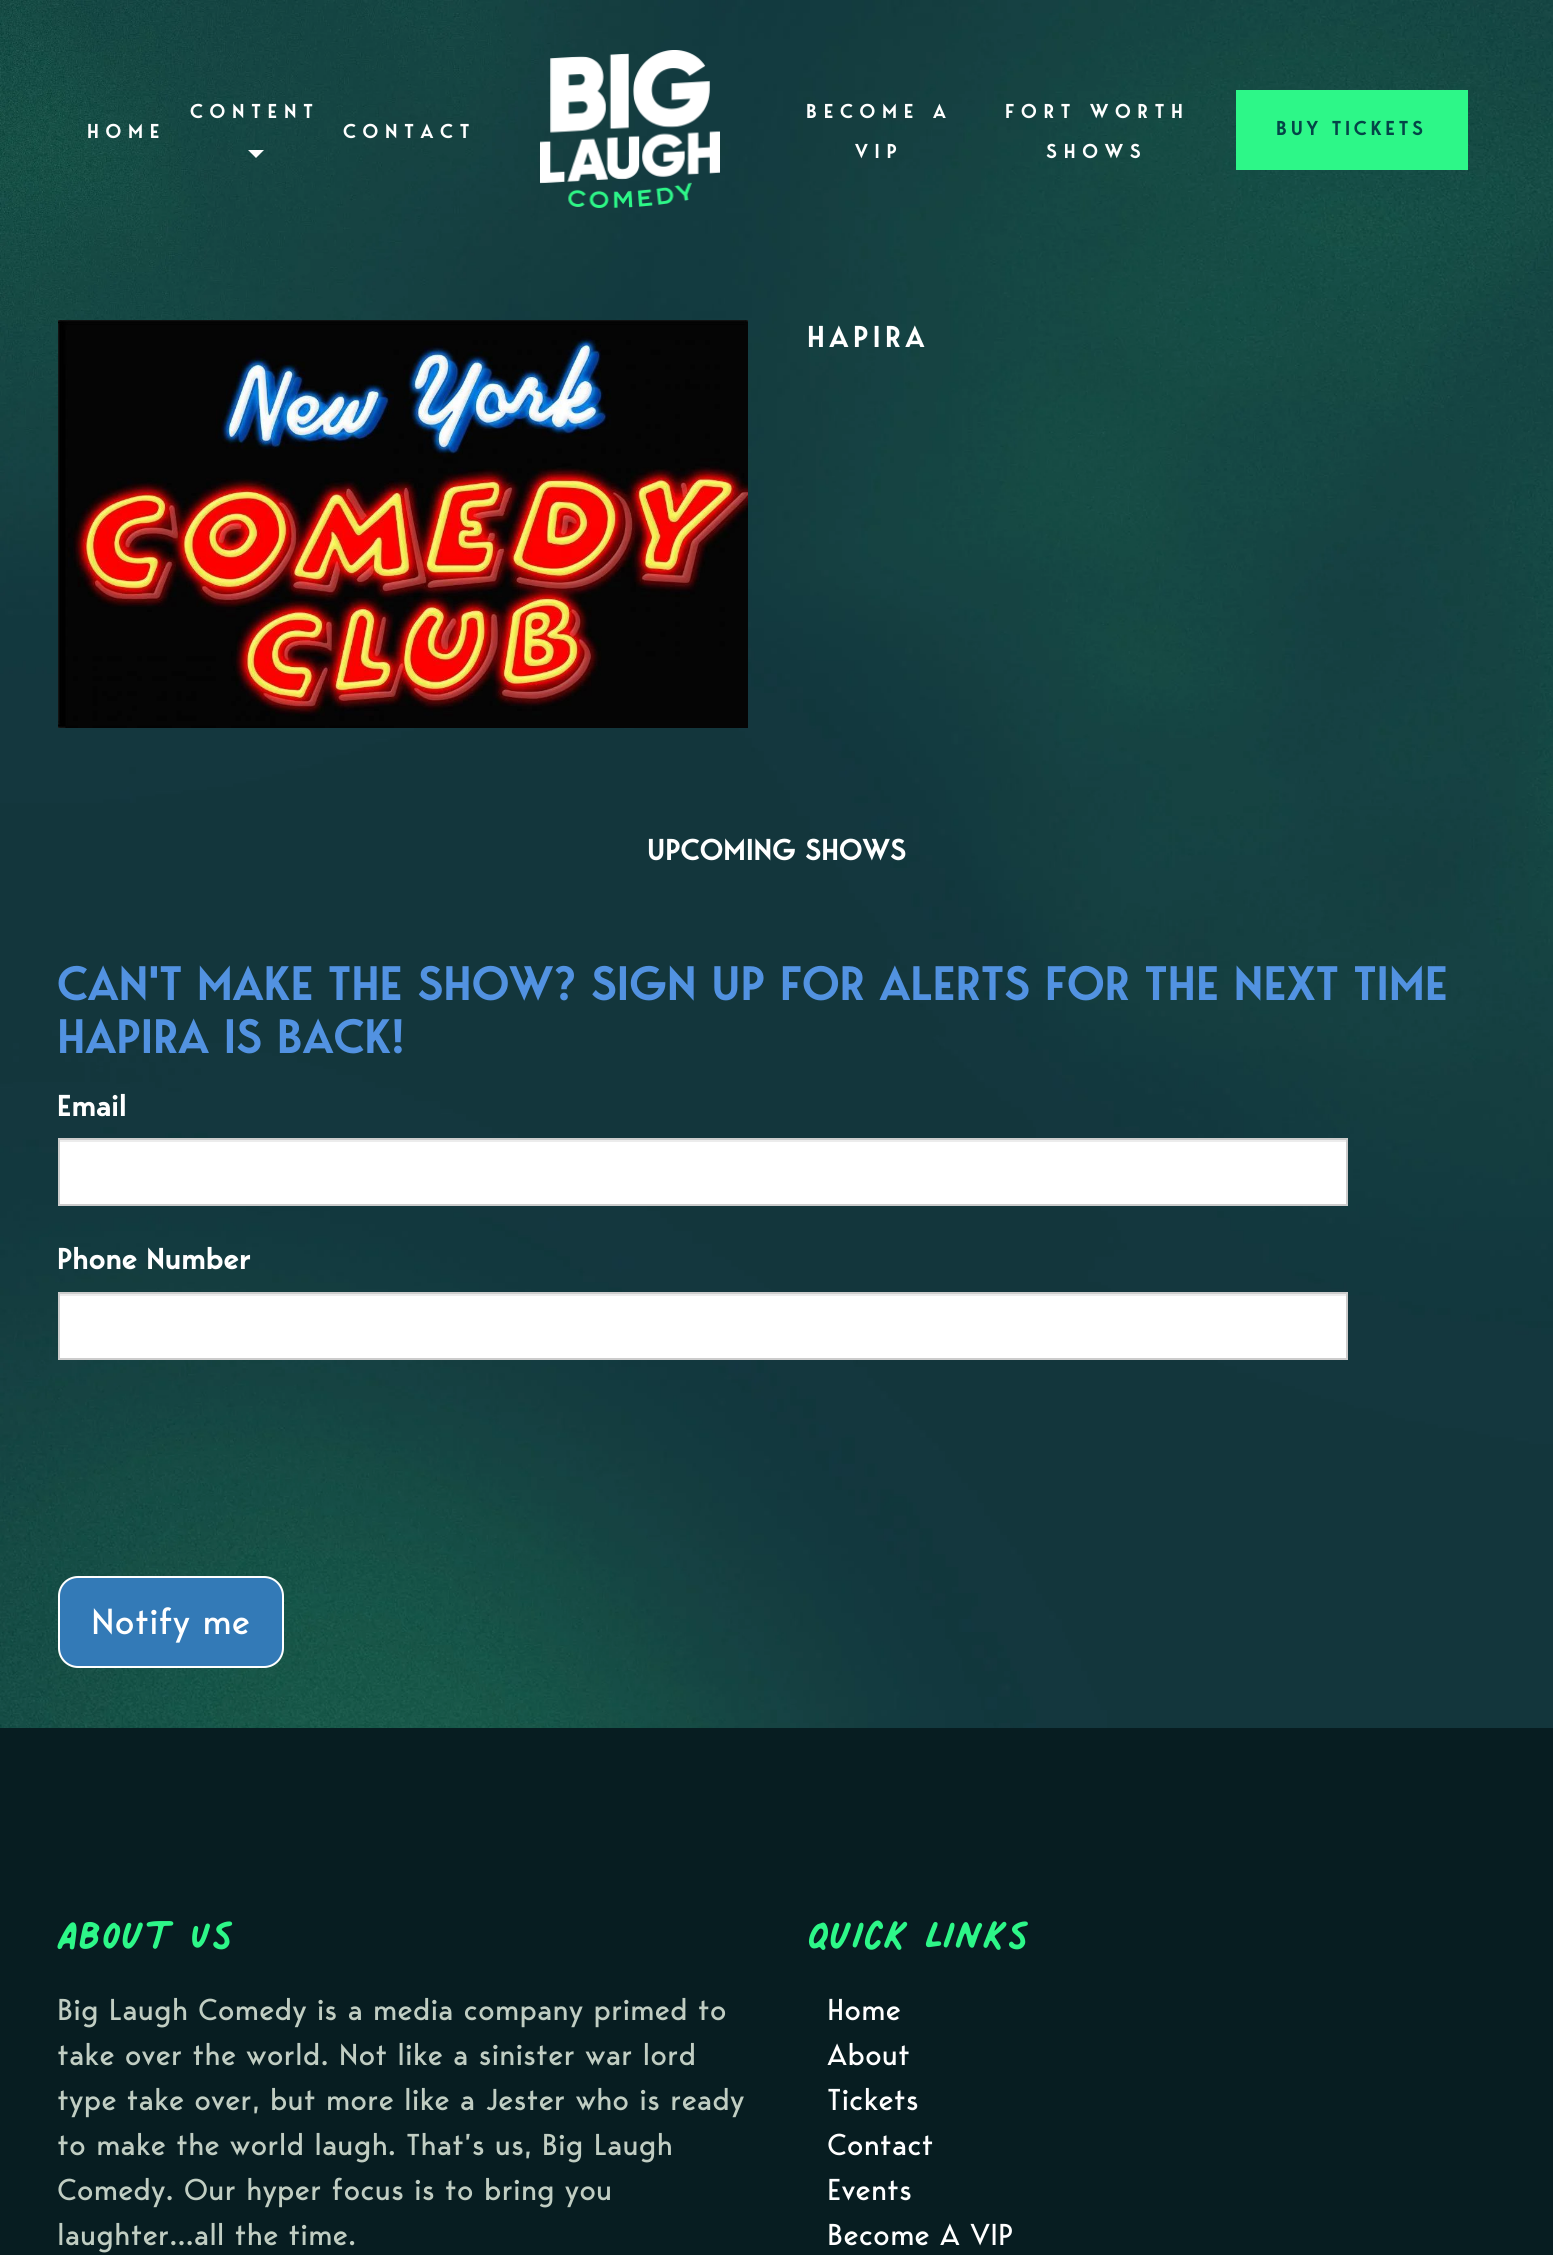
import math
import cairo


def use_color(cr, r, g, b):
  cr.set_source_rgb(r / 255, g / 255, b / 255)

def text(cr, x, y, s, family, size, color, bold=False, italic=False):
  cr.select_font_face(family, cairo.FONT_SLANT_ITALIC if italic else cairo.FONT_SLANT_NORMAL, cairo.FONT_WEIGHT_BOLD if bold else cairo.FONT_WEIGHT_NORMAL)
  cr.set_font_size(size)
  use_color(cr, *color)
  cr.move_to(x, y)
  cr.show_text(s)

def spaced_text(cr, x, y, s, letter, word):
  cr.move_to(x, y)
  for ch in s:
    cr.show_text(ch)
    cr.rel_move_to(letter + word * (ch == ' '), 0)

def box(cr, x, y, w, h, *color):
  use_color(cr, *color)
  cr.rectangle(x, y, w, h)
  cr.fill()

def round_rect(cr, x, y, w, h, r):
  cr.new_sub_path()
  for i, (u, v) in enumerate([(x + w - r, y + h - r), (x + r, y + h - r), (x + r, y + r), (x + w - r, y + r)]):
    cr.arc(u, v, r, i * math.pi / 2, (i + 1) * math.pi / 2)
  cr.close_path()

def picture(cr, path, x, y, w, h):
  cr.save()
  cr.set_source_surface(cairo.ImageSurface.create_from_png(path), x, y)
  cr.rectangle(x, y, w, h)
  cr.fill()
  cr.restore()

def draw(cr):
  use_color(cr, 255, 255, 255)
  cr.paint()
  picture(cr, "img_01.png", 0, 0, 1553, 1728)
  use_color(cr, 255, 255, 255)
  cr.new_path()
  cr.move_to(248, 150)
  cr.line_to(264, 150)
  cr.line_to(256, 158)
  cr.close_path()
  cr.fill()
  picture(cr, "img_02.png", 540, 50, 180, 158)
  box(cr, 1236, 90, 232, 80, 45, 247, 136)
  picture(cr, "img_03.png", 58, 320, 690, 408)
  box(cr, 60, 1142, 1286, 62, 255, 255, 255)
  box(cr, 60, 1140, 1286, 2, 236, 236, 236)
  cr.rectangle(59, 1139, 1288, 66)
  use_color(cr, 204, 204, 204)
  cr.stroke()
  box(cr, 60, 1296, 1286, 62, 255, 255, 255)
  box(cr, 60, 1294, 1286, 2, 236, 236, 236)
  cr.rectangle(59, 1293, 1288, 66)
  use_color(cr, 204, 204, 204)
  cr.stroke()
  use_color(cr, 51, 122, 183)
  round_rect(cr, 59, 1577, 224, 90, 19)
  cr.fill_preserve()
  use_color(cr, 255, 255, 255)
  cr.stroke()
  box(cr, 0, 1728, 1553, 527, 7, 29, 33)
  cr.select_font_face("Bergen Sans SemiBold")
  cr.set_font_size(20)
  use_color(cr, 255, 255, 255)
  spaced_text(cr, 87, 138, "HOME", 6.75, 0)
  spaced_text(cr, 190, 118, "CONTENT", 6.75, 0)
  spaced_text(cr, 343, 138, "CONTACT", 6.75, 0)
  spaced_text(cr, 806, 118, "BECOME A", 6.75, 0)
  spaced_text(cr, 855, 158, "VIP", 6.75, 0)
  spaced_text(cr, 1005, 118, "FORT WORTH", 6.75, 0)
  spaced_text(cr, 1046, 158, "SHOWS", 6.75, 0)
  use_color(cr, 4, 69, 71)
  spaced_text(cr, 1276, 135, "BUY TICKETS", 3.75, 0)
  cr.set_font_size(30)
  use_color(cr, 255, 255, 255)
  spaced_text(cr, 807, 347, "HAPIRA", 4.5, 0)
  text(cr, 647, 860, "UPCOMING SHOWS", "Bergen Sans SemiBold", 30, (255, 255, 255))
  text(cr, 57, 1000, "CAN'T MAKE THE SHOW? SIGN UP FOR ALERTS FOR THE NEXT TIME", "Bergen Sans SemiBold", 48, (82, 146, 225))
  text(cr, 57, 1053, "HAPIRA IS BACK!", "Bergen Sans SemiBold", 48, (82, 146, 225))
  text(cr, 57, 1116, "Email", "Bergen Sans SemiBold", 30, (255, 255, 255))
  text(cr, 57, 1269, "Phone Number", "Bergen Sans SemiBold", 30, (255, 255, 255))
  text(cr, 91, 1634, "Notify me", "Bergen Sans", 36, (255, 255, 255))
  text(cr, 57, 1950, "About Us", "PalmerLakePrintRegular", 84, (45, 247, 136))
  text(cr, 57, 2020, "Big Laugh Comedy is a media company primed to", "Bergen Sans", 30, (192, 205, 194))
  text(cr, 57, 2065, "take over the world. Not like a sinister war lord", "Bergen Sans", 30, (192, 205, 194))
  text(cr, 57, 2110, "type take over, but more like a Jester who is ready", "Bergen Sans", 30, (192, 205, 194))
  text(cr, 57, 2155, "to make the world laugh. That’s us, Big Laugh", "Bergen Sans", 30, (192, 205, 194))
  text(cr, 57, 2200, "Comedy. Our hyper focus is to bring you", "Bergen Sans", 30, (192, 205, 194))
  text(cr, 57, 2245, "laughter…all the time.", "Bergen Sans", 30, (192, 205, 194))
  text(cr, 807, 1950, "Quick Links", "PalmerLakePrintRegular", 84, (45, 247, 136))
  text(cr, 827, 2020, "Home", "Bergen Sans", 30, (255, 255, 255))
  text(cr, 827, 2065, "About", "Bergen Sans", 30, (255, 255, 255))
  text(cr, 827, 2110, "Tickets", "Bergen Sans", 30, (255, 255, 255))
  text(cr, 827, 2155, "Contact", "Bergen Sans", 30, (255, 255, 255))
  text(cr, 827, 2200, "Events", "Bergen Sans", 30, (255, 255, 255))
  text(cr, 827, 2245, "Become A VIP", "Bergen Sans", 30, (255, 255, 255))


surface = cairo.ImageSurface(cairo.FORMAT_RGB24, 1553, 2255)
cr = cairo.Context(surface)
options = cairo.FontOptions()
options.set_hint_metrics(cairo.HINT_METRICS_OFF)
options.set_hint_style(cairo.HINT_STYLE_NONE)
cr.set_font_options(options)
cr.set_miter_limit(4)
draw(cr)
surface.write_to_png("out.png")
